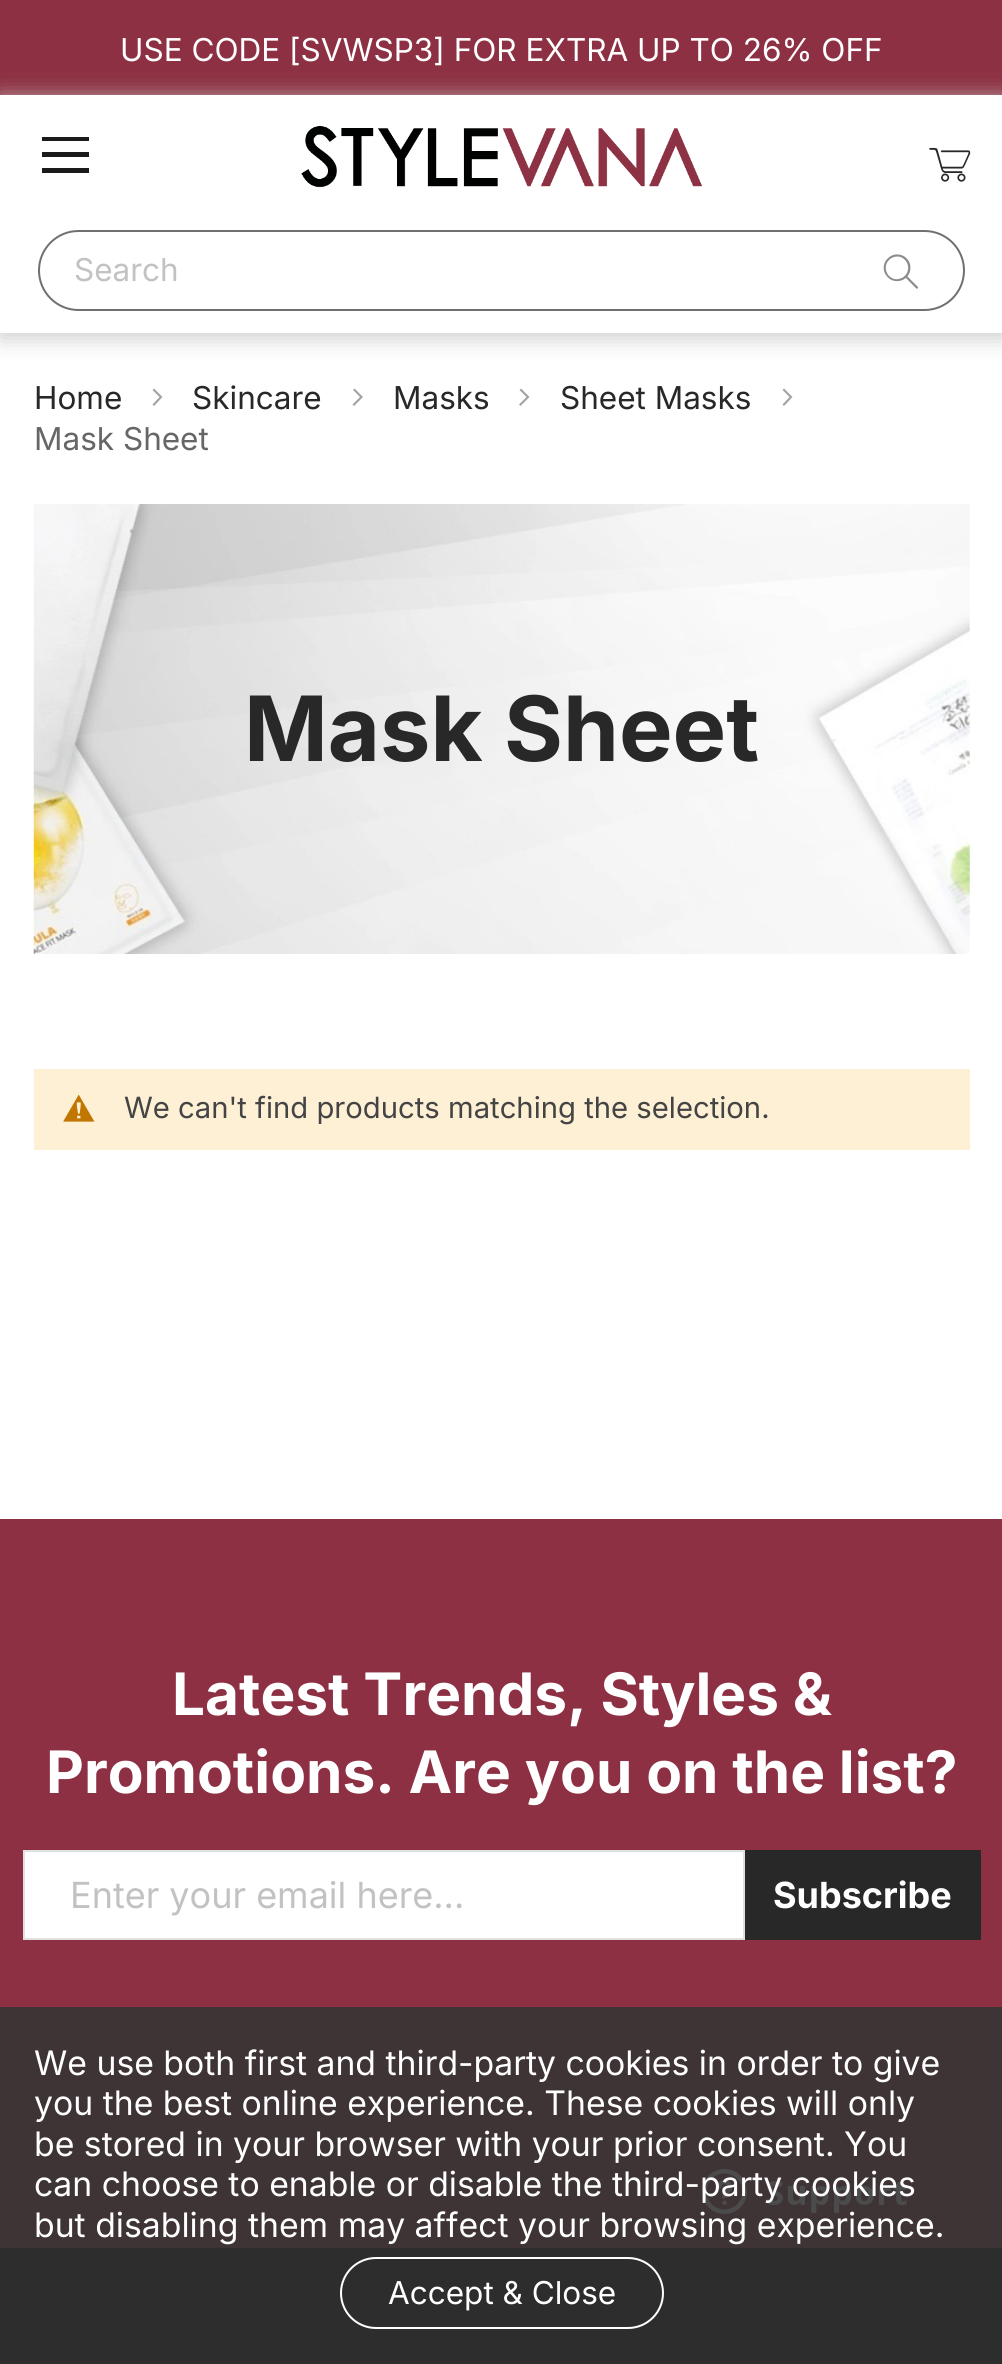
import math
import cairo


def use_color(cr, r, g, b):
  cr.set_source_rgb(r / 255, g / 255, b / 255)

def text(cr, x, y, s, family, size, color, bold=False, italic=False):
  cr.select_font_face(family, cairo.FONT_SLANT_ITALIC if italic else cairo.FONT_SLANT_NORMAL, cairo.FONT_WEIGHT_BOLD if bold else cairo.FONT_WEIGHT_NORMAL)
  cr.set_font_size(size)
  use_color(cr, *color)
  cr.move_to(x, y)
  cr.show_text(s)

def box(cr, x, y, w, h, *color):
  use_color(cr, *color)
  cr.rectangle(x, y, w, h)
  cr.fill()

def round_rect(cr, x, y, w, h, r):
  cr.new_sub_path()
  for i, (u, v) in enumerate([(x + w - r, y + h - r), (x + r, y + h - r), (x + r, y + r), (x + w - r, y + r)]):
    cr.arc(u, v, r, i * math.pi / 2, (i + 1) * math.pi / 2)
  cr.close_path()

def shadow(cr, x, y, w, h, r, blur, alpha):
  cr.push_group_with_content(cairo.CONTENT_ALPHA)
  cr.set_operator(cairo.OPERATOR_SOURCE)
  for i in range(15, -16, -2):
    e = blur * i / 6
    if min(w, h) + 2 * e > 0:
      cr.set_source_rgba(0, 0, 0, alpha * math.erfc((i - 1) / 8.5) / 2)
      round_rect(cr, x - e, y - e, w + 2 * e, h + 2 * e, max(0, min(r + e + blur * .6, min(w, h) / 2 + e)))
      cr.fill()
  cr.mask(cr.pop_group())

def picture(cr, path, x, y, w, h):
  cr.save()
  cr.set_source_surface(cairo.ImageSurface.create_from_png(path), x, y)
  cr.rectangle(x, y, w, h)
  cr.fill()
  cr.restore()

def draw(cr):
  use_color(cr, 255, 255, 255)
  cr.paint()
  box(cr, 0, 0, 1002, 95, 141, 48, 67)
  cr.save()
  cr.set_fill_rule(cairo.FILL_RULE_EVEN_ODD)
  cr.new_path()
  cr.move_to(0, 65)
  cr.line_to(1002, 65)
  cr.line_to(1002, 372)
  cr.line_to(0, 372)
  cr.close_path()
  cr.move_to(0, 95)
  cr.line_to(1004, 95)
  cr.line_to(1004, 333)
  cr.line_to(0, 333)
  cr.close_path()
  cr.clip()
  use_color(cr, 204, 204, 204)
  shadow(cr, 0, 99, 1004, 239, 0, 11, 1)
  cr.restore()
  use_color(cr, 26, 26, 26)
  cr.new_path()
  cr.move_to(42, 137)
  cr.line_to(42, 141)
  cr.line_to(89, 141)
  cr.line_to(89, 137)
  cr.close_path()
  cr.move_to(42, 157)
  cr.line_to(89, 157)
  cr.line_to(89, 152)
  cr.line_to(42, 152)
  cr.close_path()
  cr.move_to(42, 173)
  cr.line_to(89, 173)
  cr.line_to(89, 168)
  cr.line_to(42, 168)
  cr.close_path()
  cr.fill()
  picture(cr, "img_01.png", 301, 126, 401, 62)
  picture(cr, "img_02.png", 929, 147, 42, 35)
  round_rect(cr, 39, 231, 925, 79, 39.5)
  use_color(cr, 112, 112, 112)
  cr.stroke()
  picture(cr, "img_03.png", 883, 254, 35, 35)
  use_color(cr, 163, 163, 163)
  cr.new_path()
  cr.move_to(162.5, 397)
  cr.line_to(154, 388.5)
  cr.line_to(152.5, 390)
  cr.line_to(159.5, 397)
  cr.line_to(152.5, 404.5)
  cr.line_to(154, 406)
  cr.close_path()
  cr.fill()
  cr.new_path()
  cr.move_to(363, 397)
  cr.line_to(354.5, 388.5)
  cr.line_to(353, 390)
  cr.line_to(360, 397)
  cr.line_to(352.5, 404.5)
  cr.line_to(354, 406)
  cr.close_path()
  cr.fill()
  cr.new_path()
  cr.move_to(529.5, 397)
  cr.line_to(521, 388.5)
  cr.line_to(519.5, 390)
  cr.line_to(526.5, 397)
  cr.line_to(519, 404.5)
  cr.line_to(520.5, 406)
  cr.close_path()
  cr.fill()
  cr.new_path()
  cr.move_to(792.5, 397)
  cr.line_to(784, 388.5)
  cr.line_to(782.5, 390)
  cr.line_to(789.5, 397)
  cr.line_to(782.5, 404.5)
  cr.line_to(784, 406)
  cr.close_path()
  cr.fill()
  picture(cr, "img_04.png", 33, 504, 937, 450)
  box(cr, 34, 1069, 936, 81, 253, 240, 213)
  picture(cr, "img_05.png", 63, 1094, 32, 28)
  box(cr, 0, 1519, 1002, 729, 141, 48, 67)
  use_color(cr, 255, 255, 255)
  cr.rectangle(24, 1851, 720, 88)
  cr.fill_preserve()
  use_color(cr, 225, 225, 225)
  cr.stroke()
  box(cr, 745, 1850, 236, 90, 40, 40, 40)
  box(cr, 0, 2248, 1002, 116, 0, 0, 0)
  picture(cr, "img_06.png", 702, 2169, 205, 45)
  cr.set_source_rgba(0.2, 0.2, 0.2, 0.88)
  cr.rectangle(0, 2007, 1002, 357)
  cr.fill()
  round_rect(cr, 341, 2258, 322, 70, 35)
  use_color(cr, 255, 255, 255)
  cr.stroke()
  text(cr, 120, 61, "USE CODE [SVWSP3] FOR EXTRA UP TO 26% OFF", "Inter", 31.5, (255, 255, 255))
  text(cr, 74, 281, "Search", "Inter", 31.5, (194, 194, 194))
  text(cr, 34, 409, "Home", "Inter", 31.5, (40, 40, 40))
  text(cr, 192, 409, "Skincare", "Inter", 31.5, (40, 40, 40))
  text(cr, 393, 409, "Masks", "Inter", 31.5, (40, 40, 40))
  text(cr, 560, 409, "Sheet Masks", "Inter", 31.5, (40, 40, 40))
  text(cr, 34, 450, "Mask Sheet", "Inter", 31.5, (102, 102, 102))
  text(cr, 244, 761, "Mask Sheet", "Inter", 90, (40, 40, 40), bold=True)
  text(cr, 124, 1118, "We can't find products matching the selection.", "Inter", 29.25, (68, 68, 68))
  text(cr, 172, 1715, "Latest Trends, Styles &", "Inter", 58.5, (255, 255, 255), bold=True)
  text(cr, 46, 1793, "Promotions. Are you on the list?", "Inter", 58.5, (255, 255, 255), bold=True)
  text(cr, 70, 1908, "Enter your email here...", "Inter", 36, (194, 194, 194))
  text(cr, 773, 1908, "Subscribe", "Inter", 36, (255, 255, 255), bold=True)
  text(cr, 34, 2075, "We use both first and third-party cookies in order to give", "Inter", 33.75, (255, 255, 255))
  text(cr, 34, 2115, "you the best online experience. These cookies will only", "Inter", 33.75, (255, 255, 255))
  text(cr, 34, 2156, "be stored in your browser with your prior consent. You", "Inter", 33.75, (255, 255, 255))
  text(cr, 34, 2196, "can choose to enable or disable the third-party cookies", "Inter", 33.75, (255, 255, 255))
  text(cr, 34, 2237, "but disabling them may affect your browsing experience.", "Inter", 33.75, (255, 255, 255))
  text(cr, 388, 2304, "Accept & Close", "Inter", 31.5, (255, 255, 255))


surface = cairo.ImageSurface(cairo.FORMAT_RGB24, 1002, 2364)
cr = cairo.Context(surface)
options = cairo.FontOptions()
options.set_hint_metrics(cairo.HINT_METRICS_OFF)
options.set_hint_style(cairo.HINT_STYLE_NONE)
cr.set_font_options(options)
cr.set_miter_limit(4)
draw(cr)
surface.write_to_png("out.png")
